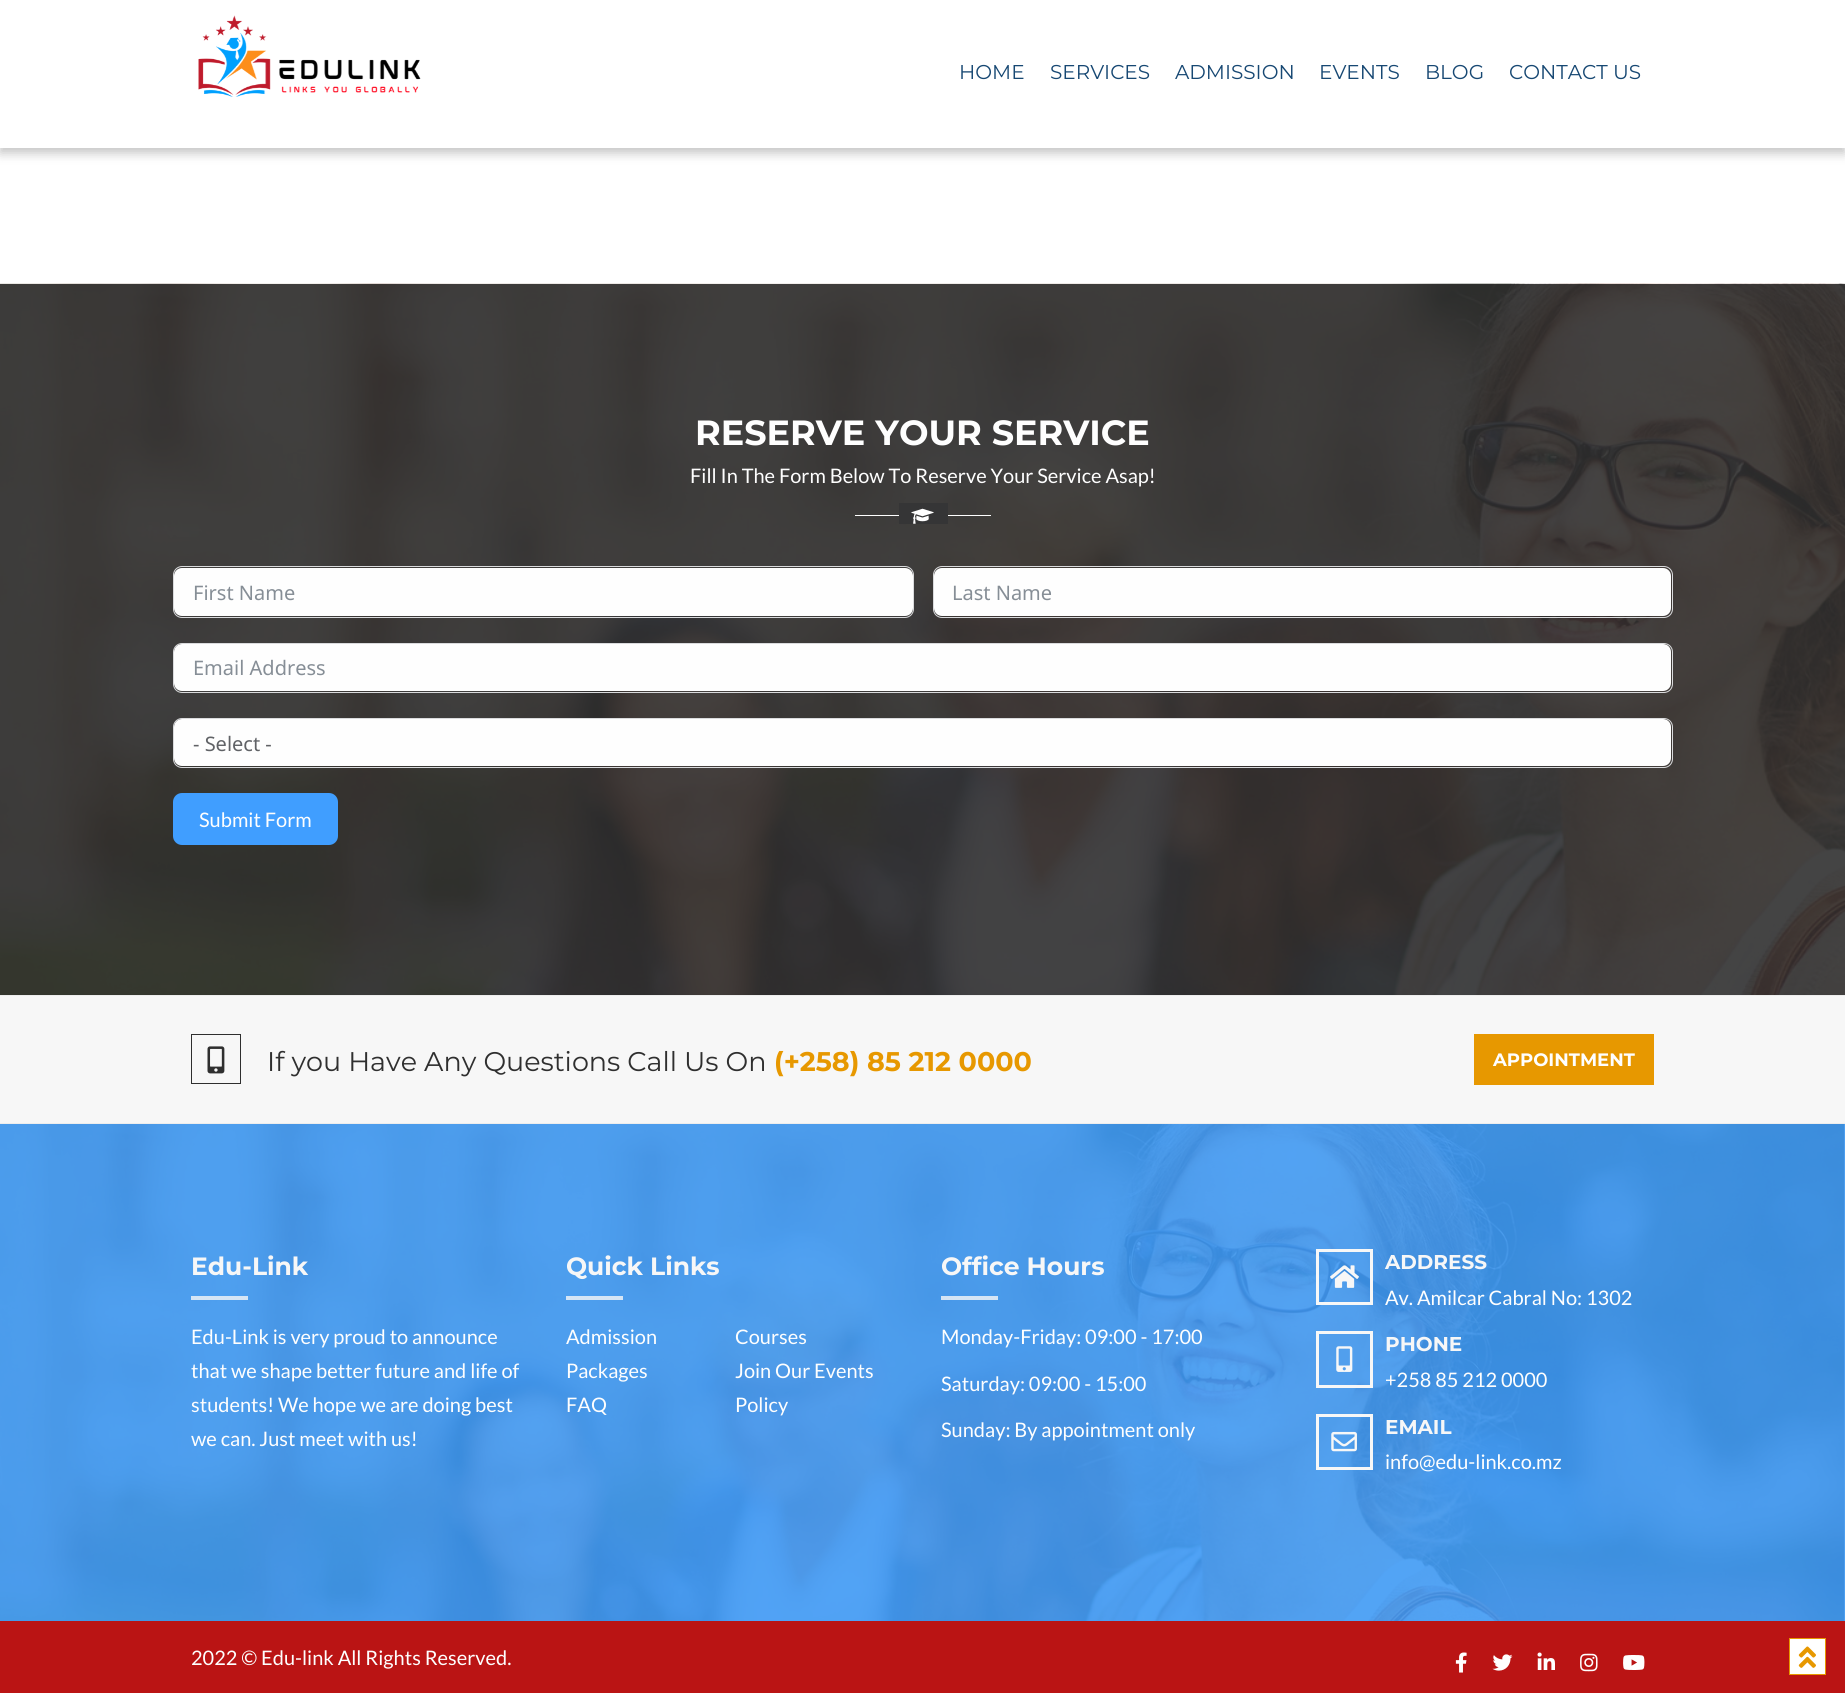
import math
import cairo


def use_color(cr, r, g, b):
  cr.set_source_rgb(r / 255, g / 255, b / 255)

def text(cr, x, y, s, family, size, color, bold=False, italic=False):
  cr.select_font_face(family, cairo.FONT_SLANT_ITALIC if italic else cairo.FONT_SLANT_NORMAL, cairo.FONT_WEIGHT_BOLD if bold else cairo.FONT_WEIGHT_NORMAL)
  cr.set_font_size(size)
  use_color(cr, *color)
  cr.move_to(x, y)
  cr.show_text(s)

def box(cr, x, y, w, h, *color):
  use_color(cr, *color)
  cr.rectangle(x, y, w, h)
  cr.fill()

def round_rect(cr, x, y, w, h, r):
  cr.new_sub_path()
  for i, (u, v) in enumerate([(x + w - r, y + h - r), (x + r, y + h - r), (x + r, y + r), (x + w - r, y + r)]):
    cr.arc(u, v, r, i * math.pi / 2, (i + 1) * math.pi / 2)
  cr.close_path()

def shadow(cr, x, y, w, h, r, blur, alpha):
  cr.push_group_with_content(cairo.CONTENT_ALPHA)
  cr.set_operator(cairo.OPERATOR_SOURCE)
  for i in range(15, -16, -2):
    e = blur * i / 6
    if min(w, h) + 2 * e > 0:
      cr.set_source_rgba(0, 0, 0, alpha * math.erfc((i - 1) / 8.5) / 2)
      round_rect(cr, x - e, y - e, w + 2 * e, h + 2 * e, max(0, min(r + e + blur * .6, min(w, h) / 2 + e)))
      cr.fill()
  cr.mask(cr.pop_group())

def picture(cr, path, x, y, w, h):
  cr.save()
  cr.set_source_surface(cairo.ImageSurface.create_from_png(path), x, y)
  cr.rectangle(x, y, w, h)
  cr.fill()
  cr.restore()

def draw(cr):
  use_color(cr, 255, 255, 255)
  cr.paint()
  use_color(cr, 0, 0, 0)
  shadow(cr, 0, 5, 1845, 148, 0, 5.5, 0.24)
  box(cr, 0, 0, 1845, 148, 255, 255, 255)
  picture(cr, "img_01.png", 198, 15, 223, 82)
  picture(cr, "img_02.png", 0, 283, 1845, 712)
  box(cr, 855, 515, 136, 1, 255, 255, 255)
  box(cr, 899, 503, 49, 21, 53, 53, 54)
  picture(cr, "img_03.png", 911, 508, 23, 16)
  use_color(cr, 254, 254, 254)
  round_rect(cr, 174, 568, 739, 48, 8)
  cr.fill()
  round_rect(cr, 173.5, 566.5, 740, 51, 8.5)
  use_color(cr, 218, 219, 221)
  cr.set_line_width(1)
  cr.stroke()
  use_color(cr, 254, 254, 254)
  round_rect(cr, 934, 568, 737, 48, 8)
  cr.fill()
  round_rect(cr, 933.5, 566.5, 739, 51, 8.5)
  use_color(cr, 218, 219, 221)
  cr.stroke()
  use_color(cr, 254, 254, 254)
  round_rect(cr, 174, 644, 1497, 47, 8)
  cr.fill()
  round_rect(cr, 173.5, 643.5, 1499, 49, 8.5)
  use_color(cr, 218, 219, 221)
  cr.stroke()
  use_color(cr, 254, 254, 254)
  round_rect(cr, 174, 719, 1497, 47, 8)
  cr.fill()
  round_rect(cr, 173.5, 718.5, 1499, 49, 8.5)
  use_color(cr, 218, 219, 221)
  cr.stroke()
  use_color(cr, 64, 158, 255)
  round_rect(cr, 173, 793, 165, 52, 9)
  cr.fill()
  box(cr, 0, 996, 1845, 127, 247, 247, 247)
  box(cr, 0, 995, 1845, 1, 237, 237, 237)
  box(cr, 0, 1123, 1845, 1, 237, 237, 237)
  cr.rectangle(191.5, 1034.5, 49, 49)
  use_color(cr, 47, 47, 47)
  cr.stroke()
  picture(cr, "img_04.png", 207, 1046, 18, 28)
  box(cr, 1474, 1034, 180, 51, 231, 152, 0)
  picture(cr, "img_05.png", 0, 1124, 1845, 497)
  box(cr, 191, 1296, 57, 4, 213, 229, 245)
  box(cr, 566, 1296, 57, 4, 213, 229, 245)
  cr.set_source_rgba(0.969, 0.969, 0.969, 0.8)
  cr.rectangle(941, 1296, 57, 4)
  cr.fill()
  cr.rectangle(1317.5, 1250.5, 54, 53)
  use_color(cr, 247, 247, 247)
  cr.set_line_width(3)
  cr.stroke()
  picture(cr, "img_06.png", 1330, 1265, 29, 23)
  cr.rectangle(1317.5, 1332.5, 54, 54)
  cr.stroke()
  picture(cr, "img_07.png", 1336, 1346, 17, 26)
  cr.rectangle(1317.5, 1415.5, 54, 53)
  cr.stroke()
  picture(cr, "img_08.png", 1331, 1431, 26, 21)
  box(cr, 0, 1621, 1845, 72, 186, 20, 20)
  picture(cr, "img_09.png", 1455, 1652, 12, 21)
  picture(cr, "img_10.png", 1492, 1654, 21, 17)
  picture(cr, "img_11.png", 1537, 1652, 18, 18)
  picture(cr, "img_12.png", 1580, 1653, 18, 19)
  picture(cr, "img_13.png", 1623, 1655, 22, 15)
  use_color(cr, 255, 255, 255)
  cr.rectangle(1789.5, 1638.5, 36, 36)
  cr.fill_preserve()
  use_color(cr, 231, 152, 0)
  cr.set_line_width(1)
  cr.stroke()
  picture(cr, "img_14.png", 1798, 1646, 18, 22)
  text(cr, 959, 79, "HOME", "Montserrat", 20, (23, 72, 115))
  text(cr, 1050, 79, "SERVICES", "Montserrat", 20, (23, 72, 115))
  text(cr, 1175, 79, "ADMISSION", "Montserrat", 20, (23, 72, 115))
  text(cr, 1319, 79, "EVENTS", "Montserrat", 20, (23, 72, 115))
  text(cr, 1425, 79, "BLOG", "Montserrat", 20, (23, 72, 115))
  text(cr, 1509, 79, "CONTACT US", "Montserrat", 20, (23, 72, 115))
  text(cr, 695, 445, "RESERVE YOUR SERVICE", "Montserrat", 35, (254, 254, 254), bold=True)
  text(cr, 690, 483, "Fill In The Form Below To Reserve Your Service Asap!", "Lato", 20, (254, 254, 254))
  text(cr, 193, 600, "First Name", "Noto Sans", 20, (134, 142, 150))
  text(cr, 952, 600, "Last Name", "Noto Sans", 20, (134, 142, 150))
  text(cr, 193, 675, "Email Address", "Noto Sans", 20, (134, 142, 150))
  text(cr, 193, 751, "- Select -", "Noto Sans", 20, (96, 98, 102))
  text(cr, 199, 827, "Submit Form", "Lato", 20, (254, 254, 254))
  text(cr, 267, 1071, "If you Have Any Questions Call Us On", "Montserrat", 27, (47, 47, 47))
  text(cr, 774, 1071, "(+258) 85 212 0000", "Montserrat", 27, (231, 152, 0), bold=True)
  text(cr, 1493, 1066, "APPOINTMENT", "Montserrat", 18, (254, 254, 254), bold=True)
  text(cr, 191, 1275, "Edu-Link", "Montserrat", 25, (247, 247, 247), bold=True)
  text(cr, 191, 1344, "Edu-Link is very proud to announce", "Lato", 20, (254, 254, 254))
  text(cr, 191, 1378, "that we shape better future and life of", "Lato", 20, (254, 254, 254))
  text(cr, 191, 1412, "students! We hope we are doing best", "Lato", 20, (254, 254, 254))
  text(cr, 191, 1446, "we can. Just meet with us!", "Lato", 20, (254, 254, 254))
  text(cr, 566, 1275, "Quick Links", "Montserrat", 25, (247, 247, 247), bold=True)
  text(cr, 566, 1344, "Admission", "Lato", 20, (254, 254, 254))
  text(cr, 566, 1378, "Packages", "Lato", 20, (254, 254, 254))
  text(cr, 735, 1344, "Courses", "Lato", 20, (254, 254, 254))
  text(cr, 735, 1378, "Join Our Events", "Lato", 20, (254, 254, 254))
  text(cr, 566, 1412, "FAQ", "Lato", 20, (254, 254, 254))
  text(cr, 735, 1412, "Policy", "Lato", 20, (254, 254, 254))
  text(cr, 941, 1275, "Office Hours", "Montserrat", 25, (247, 247, 247), bold=True)
  text(cr, 941, 1344, "Monday-Friday: 09:00 - 17:00", "Lato", 20, (254, 254, 254))
  text(cr, 941, 1391, "Saturday: 09:00 - 15:00", "Lato", 20, (254, 254, 254))
  text(cr, 941, 1437, "Sunday: By appointment only", "Lato", 20, (254, 254, 254))
  text(cr, 1385, 1269, "ADDRESS", "Montserrat", 20, (247, 247, 247), bold=True)
  text(cr, 1385, 1305, "Av. Amilcar Cabral No: 1302", "Lato", 20, (254, 254, 254))
  text(cr, 1385, 1351, "PHONE", "Montserrat", 20, (247, 247, 247), bold=True)
  text(cr, 1385, 1387, "+258 85 212 0000", "Lato", 20, (254, 254, 254))
  text(cr, 1385, 1434, "EMAIL", "Montserrat", 20, (247, 247, 247), bold=True)
  text(cr, 1385, 1469, "info@edu-link.co.mz", "Lato", 20, (254, 254, 254))
  text(cr, 191, 1665, "2022 © Edu-link All Rights Reserved.", "Lato", 20, (254, 254, 254))


surface = cairo.ImageSurface(cairo.FORMAT_RGB24, 1845, 1693)
cr = cairo.Context(surface)
options = cairo.FontOptions()
options.set_hint_metrics(cairo.HINT_METRICS_OFF)
options.set_hint_style(cairo.HINT_STYLE_NONE)
cr.set_font_options(options)
cr.set_miter_limit(4)
draw(cr)
surface.write_to_png("out.png")
